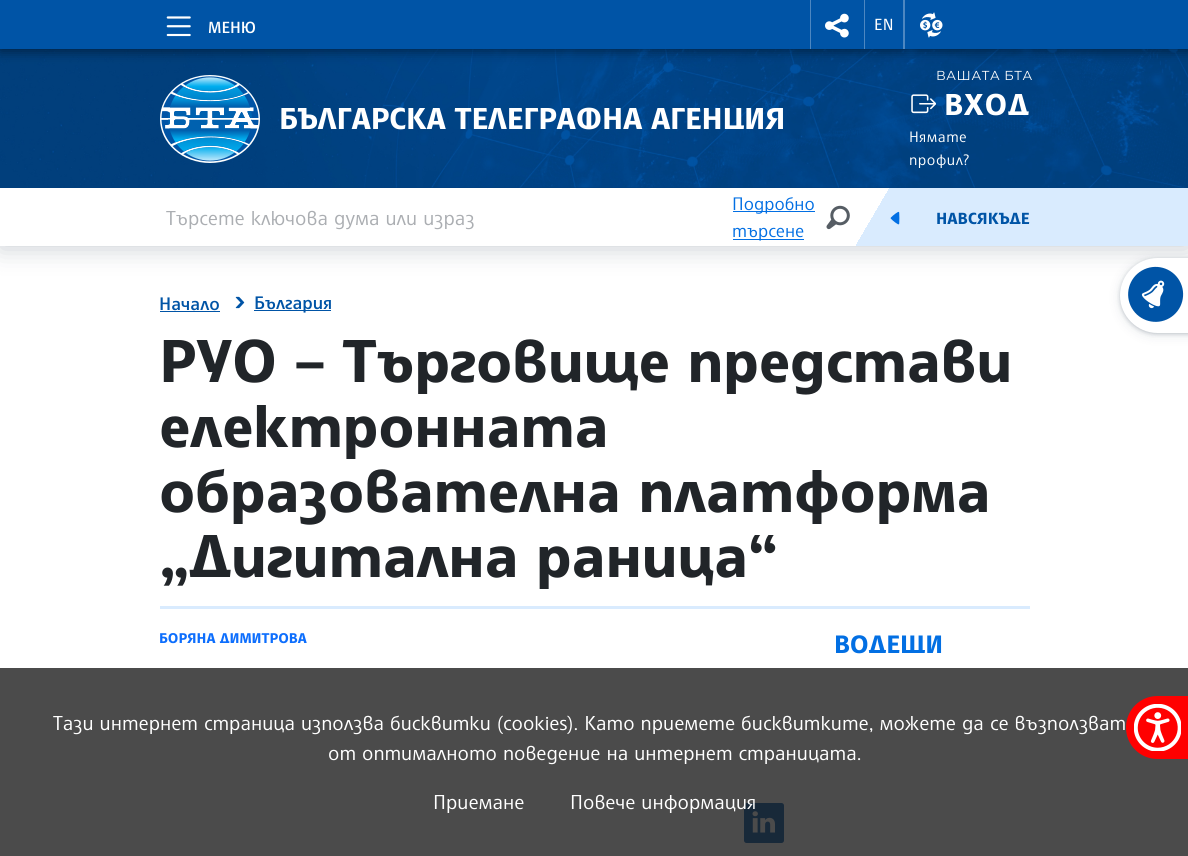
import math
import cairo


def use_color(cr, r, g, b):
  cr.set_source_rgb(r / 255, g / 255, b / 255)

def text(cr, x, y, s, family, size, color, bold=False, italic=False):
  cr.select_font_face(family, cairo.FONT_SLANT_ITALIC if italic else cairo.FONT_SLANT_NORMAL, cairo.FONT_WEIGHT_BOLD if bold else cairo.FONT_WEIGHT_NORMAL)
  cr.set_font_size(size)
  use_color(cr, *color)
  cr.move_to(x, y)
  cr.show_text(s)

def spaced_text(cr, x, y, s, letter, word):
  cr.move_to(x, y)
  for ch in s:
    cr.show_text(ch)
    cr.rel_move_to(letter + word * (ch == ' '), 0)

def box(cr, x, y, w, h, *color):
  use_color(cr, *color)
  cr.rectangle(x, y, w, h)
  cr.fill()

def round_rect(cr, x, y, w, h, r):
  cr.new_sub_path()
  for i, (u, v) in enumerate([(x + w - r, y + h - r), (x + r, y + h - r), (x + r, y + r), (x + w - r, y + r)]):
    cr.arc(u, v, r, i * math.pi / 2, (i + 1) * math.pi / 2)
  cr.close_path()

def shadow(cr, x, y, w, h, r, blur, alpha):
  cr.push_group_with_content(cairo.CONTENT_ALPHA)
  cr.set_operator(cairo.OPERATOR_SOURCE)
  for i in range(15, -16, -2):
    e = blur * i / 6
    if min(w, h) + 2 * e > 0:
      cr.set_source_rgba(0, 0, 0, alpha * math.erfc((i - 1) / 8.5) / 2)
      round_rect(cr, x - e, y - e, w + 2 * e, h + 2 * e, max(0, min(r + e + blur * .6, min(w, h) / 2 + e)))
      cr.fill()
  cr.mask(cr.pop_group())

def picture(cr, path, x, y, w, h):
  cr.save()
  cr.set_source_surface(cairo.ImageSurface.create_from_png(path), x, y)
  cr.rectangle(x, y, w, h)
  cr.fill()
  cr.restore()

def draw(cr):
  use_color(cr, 255, 255, 255)
  cr.paint()
  use_color(cr, 0, 22, 46)
  shadow(cr, 0, 3, 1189, 246, 0, 12.5, 0.2)
  box(cr, 0, 187, 1188, 1, 1, 63, 124)
  picture(cr, "img_04.png", 0, 49, 1188, 139)
  use_color(cr, 0, 0, 0)
  shadow(cr, 0, 3, 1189, 48, 0, 6, 0.5)
  box(cr, 0, 0, 1188, 49, 0, 84, 166)
  picture(cr, "img_01.png", 166, 16, 25, 21)
  box(cr, 864, 0, 1, 49, 77, 135, 193)
  box(cr, 810, 0, 1, 49, 77, 135, 193)
  picture(cr, "img_02.png", 825, 13, 24, 25)
  box(cr, 903, 0, 2, 49, 77, 135, 193)
  picture(cr, "img_03.png", 920, 12, 23, 26)
  picture(cr, "img_05.png", 160, 75, 100, 88)
  picture(cr, "img_06.png", 911, 94, 25, 20)
  box(cr, 0, 188, 854, 58, 255, 255, 255)
  box(cr, 891, 188, 297, 58, 217, 235, 254)
  box(cr, 733, 211, 82, 1, 2, 111, 227)
  box(cr, 733, 239, 71, 1, 2, 111, 227)
  picture(cr, "img_07.png", 826, 205, 24, 25)
  gradient = cairo.LinearGradient(846, 201, 899, 232)
  gradient.add_color_stop_rgba(0.5, 1, 1, 1, 1)
  gradient.add_color_stop_rgba(0.5, 0.851, 0.922, 0.996, 1)
  cr.set_source(gradient)
  cr.rectangle(854, 188, 37, 58)
  cr.fill()
  picture(cr, "img_08.png", 890, 211, 10, 14)
  box(cr, 160, 311, 60, 1, 0, 84, 166)
  picture(cr, "img_09.png", 235, 296, 10, 13)
  box(cr, 254, 310, 77, 1, 0, 84, 166)
  box(cr, 160, 606, 870, 3, 217, 235, 254)
  picture(cr, "img_10.png", 744, 803, 40, 40)
  use_color(cr, 0, 22, 46)
  shadow(cr, 1120, 260, 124, 75, 37.5, 6, 0.1)
  shadow(cr, 1120, 259, 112, 75, 37.5, 2, 0.2)
  use_color(cr, 255, 255, 255)
  cr.new_path()
  cr.move_to(1157.5, 258)
  cr.line_to(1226, 258)
  cr.line_to(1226, 333)
  cr.line_to(1157.5, 333)
  cr.curve_to(1137, 333, 1120, 316, 1120, 295.5)
  cr.curve_to(1120, 275, 1137, 258, 1157.5, 258)
  cr.close_path()
  cr.fill()
  picture(cr, "img_11.png", 1128, 266, 56, 56)
  cr.set_source_rgba(0.118, 0.118, 0.118, 0.8)
  cr.rectangle(0, 668, 1188, 188)
  cr.fill()
  use_color(cr, 255, 0, 0)
  cr.new_path()
  cr.move_to(1157.5, 696)
  cr.line_to(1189, 696)
  cr.line_to(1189, 759)
  cr.line_to(1157.5, 759)
  cr.curve_to(1140, 759, 1126, 745, 1126, 727.5)
  cr.curve_to(1126, 710, 1140, 696, 1157.5, 696)
  cr.close_path()
  cr.fill()
  picture(cr, "img_12.png", 1134, 704, 47, 47)
  text(cr, 208, 33, "МЕНЮ", "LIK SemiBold", 16, (255, 255, 255))
  cr.select_font_face("LIK Medium")
  spaced_text(cr, 874, 30, "EN", 0.5, 0)
  cr.select_font_face("LIK ExtraBold")
  cr.set_font_size(30)
  spaced_text(cr, 279, 129, "БЪЛГАРСКА ТЕЛЕГРАФНА АГЕНЦИЯ", -0.2, 0)
  cr.select_font_face("Montserrat")
  cr.set_font_size(13)
  spaced_text(cr, 936, 80, "ВАШАТА БТА", 0.6, 0)
  cr.select_font_face("LIK ExtraBold")
  cr.set_font_size(30)
  spaced_text(cr, 944, 115, "ВХОД", 0.6, 0)
  cr.select_font_face("LIK")
  cr.set_font_size(15)
  spaced_text(cr, 909, 142, "Нямате", 0.5, 0)
  spaced_text(cr, 909, 165, "профил?", 0.5, 0)
  text(cr, 166, 225, "Търсете ключова дума или израз", "LIK", 20, (171, 174, 178))
  text(cr, 732, 210, "Подробно", "LIK", 18, (2, 111, 227))
  text(cr, 732, 237, "търсене", "LIK", 18, (2, 111, 227))
  text(cr, 936, 224, "НАВСЯКЪДЕ", "LIK ExtraBold", 16, (0, 84, 166))
  text(cr, 159, 310, "Начало", "LIK SemiBold", 18, (0, 84, 166))
  text(cr, 254, 309, "България", "LIK SemiBold", 18, (0, 84, 166))
  cr.select_font_face("LIK ExtraBold")
  cr.set_font_size(60)
  use_color(cr, 33, 37, 41)
  spaced_text(cr, 159, 382, "РУО – Търговище представи", -0.4, 0)
  spaced_text(cr, 159, 447, "електронната", -0.4, 0)
  spaced_text(cr, 159, 512, "образователна платформа", -0.4, 0)
  spaced_text(cr, 159, 577, "„Дигитална раница“", -0.4, 0)
  text(cr, 159, 643, "БОРЯНА ДИМИТРОВА", "LIK ExtraBold", 14, (13, 110, 253))
  text(cr, 834, 653, "ВОДЕЩИ", "LIK ExtraBold", 25, (2, 111, 227))
  text(cr, 53, 730, "Тази интернет страница използва бисквитки (cookies). Като приемете бисквитките, можете да се възползват", "LIK", 20, (255, 255, 255))
  text(cr, 328, 760, "от оптималното поведение на интернет страницата.", "LIK", 20, (255, 255, 255))
  text(cr, 433, 809, "Приемане", "LIK", 20, (255, 255, 255))
  text(cr, 570, 809, "Повече информация", "LIK", 20, (255, 255, 255))


surface = cairo.ImageSurface(cairo.FORMAT_RGB24, 1188, 856)
cr = cairo.Context(surface)
options = cairo.FontOptions()
options.set_hint_metrics(cairo.HINT_METRICS_OFF)
options.set_hint_style(cairo.HINT_STYLE_NONE)
cr.set_font_options(options)
cr.set_miter_limit(4)
draw(cr)
surface.write_to_png("out.png")
